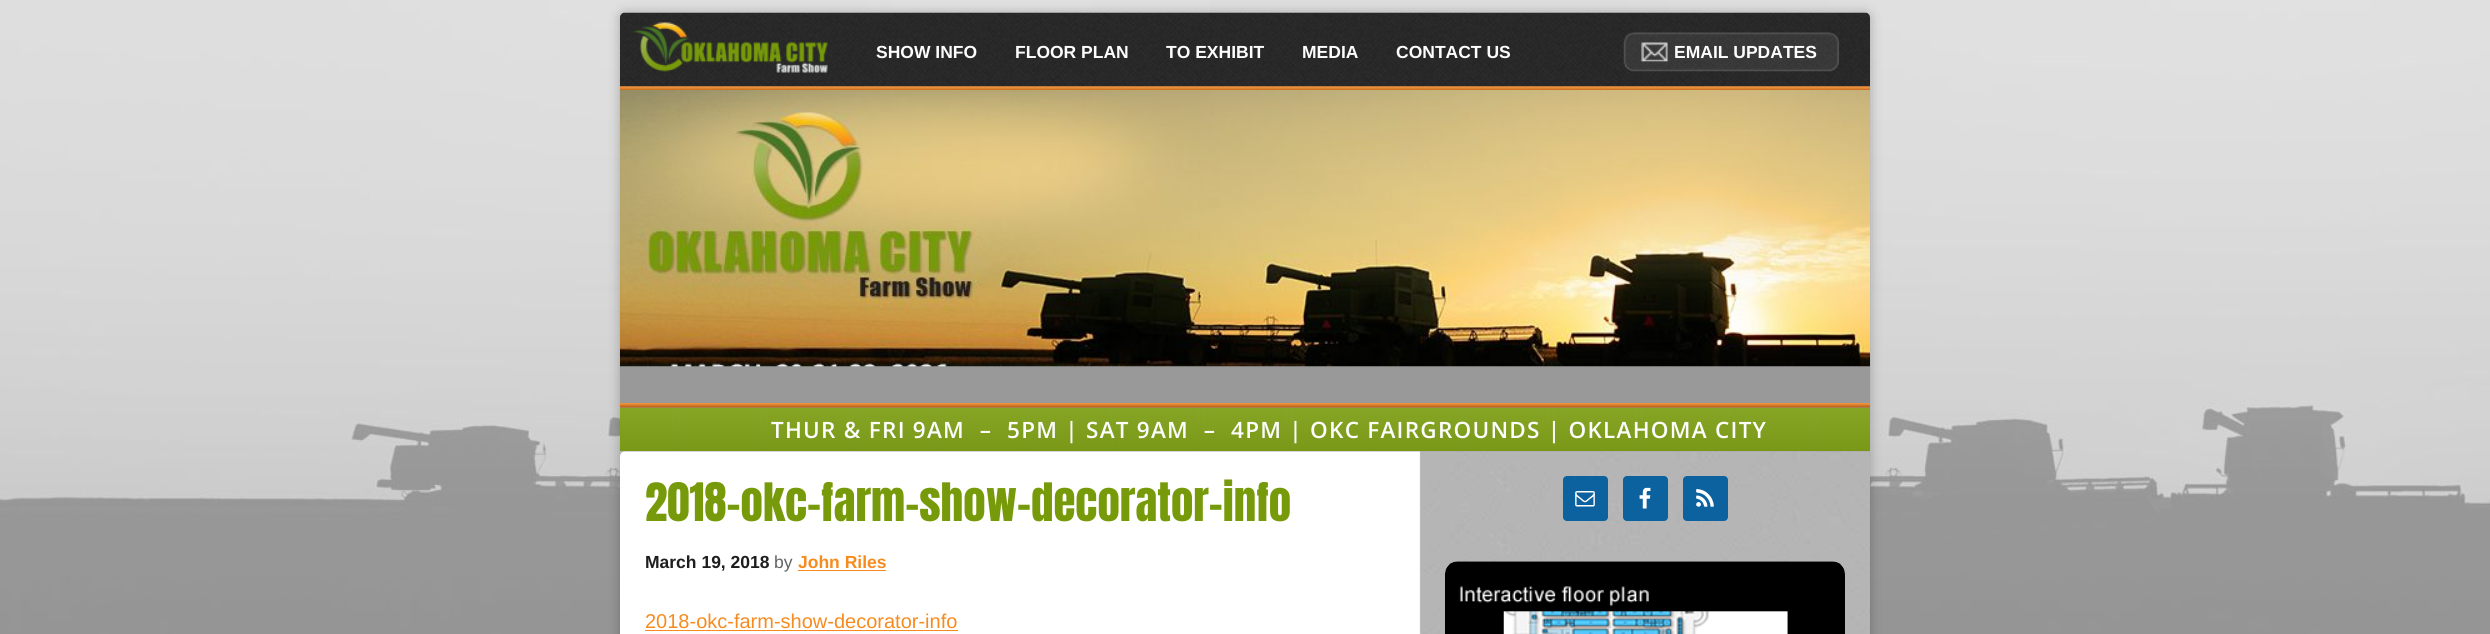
import math
import cairo


def use_color(cr, r, g, b):
  cr.set_source_rgb(r / 255, g / 255, b / 255)

def text(cr, x, y, s, family, size, color, bold=False, italic=False):
  cr.select_font_face(family, cairo.FONT_SLANT_ITALIC if italic else cairo.FONT_SLANT_NORMAL, cairo.FONT_WEIGHT_BOLD if bold else cairo.FONT_WEIGHT_NORMAL)
  cr.set_font_size(size)
  use_color(cr, *color)
  cr.move_to(x, y)
  cr.show_text(s)

def spaced_text(cr, x, y, s, letter, word):
  cr.move_to(x, y)
  for ch in s:
    cr.show_text(ch)
    cr.rel_move_to(letter + word * (ch == ' '), 0)

def box(cr, x, y, w, h, *color):
  use_color(cr, *color)
  cr.rectangle(x, y, w, h)
  cr.fill()

def round_rect(cr, x, y, w, h, r):
  cr.new_sub_path()
  for i, (u, v) in enumerate([(x + w - r, y + h - r), (x + r, y + h - r), (x + r, y + r), (x + w - r, y + r)]):
    cr.arc(u, v, r, i * math.pi / 2, (i + 1) * math.pi / 2)
  cr.close_path()

def shadow(cr, x, y, w, h, r, blur, alpha):
  cr.push_group_with_content(cairo.CONTENT_ALPHA)
  cr.set_operator(cairo.OPERATOR_SOURCE)
  for i in range(15, -16, -2):
    e = blur * i / 6
    if min(w, h) + 2 * e > 0:
      cr.set_source_rgba(0, 0, 0, alpha * math.erfc((i - 1) / 8.5) / 2)
      round_rect(cr, x - e, y - e, w + 2 * e, h + 2 * e, max(0, min(r + e + blur * .6, min(w, h) / 2 + e)))
      cr.fill()
  cr.mask(cr.pop_group())

def picture(cr, path, x, y, w, h):
  cr.save()
  cr.set_source_surface(cairo.ImageSurface.create_from_png(path), x, y)
  cr.rectangle(x, y, w, h)
  cr.fill()
  cr.restore()

def draw(cr):
  use_color(cr, 255, 255, 255)
  cr.paint()
  picture(cr, "img_01.png", 0, 0, 2490, 634)
  use_color(cr, 0, 0, 0)
  shadow(cr, 620, 13, 1250, 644, 5, 6, 0.25)
  picture(cr, "img_02.png", 620, 12, 1250, 75)
  picture(cr, "img_03.png", 620, 86, 1250, 4)
  picture(cr, "img_04.png", 633, 22, 195, 51)
  picture(cr, "img_05.png", 1623, 32, 216, 40)
  box(cr, 620, 407, 1250, 1, 153, 153, 153)
  picture(cr, "img_06.png", 620, 403, 1250, 5)
  box(cr, 620, 366, 1250, 37, 153, 153, 153)
  picture(cr, "img_07.png", 620, 90, 1250, 277)
  box(cr, 620, 408, 1250, 43, 119, 154, 11)
  picture(cr, "img_08.png", 620, 408, 1250, 43)
  use_color(cr, 163, 163, 163)
  round_rect(cr, 620, 451, 1250, 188, 5)
  cr.fill()
  picture(cr, "img_09.png", 620, 451, 1250, 183)
  box(cr, 798, 570, 88, 1, 246, 139, 31)
  box(cr, 645, 630, 313, 1, 246, 139, 31)
  use_color(cr, 12, 98, 158)
  round_rect(cr, 1563, 476, 45, 45, 4)
  cr.fill()
  picture(cr, "img_10.png", 1575, 491, 20, 16)
  round_rect(cr, 1623, 476, 45, 45, 4)
  cr.fill()
  picture(cr, "img_11.png", 1639, 487, 12, 22)
  round_rect(cr, 1683, 476, 45, 45, 4)
  cr.fill()
  picture(cr, "img_12.png", 1696, 489, 18, 18)
  picture(cr, "img_13.png", 1445, 561, 400, 73)
  text(cr, 876, 58, "SHOW INFO", "Liberation Sans", 17.5, (253, 253, 253), bold=True)
  text(cr, 1015, 58, "FLOOR PLAN", "Liberation Sans", 17.5, (253, 253, 253), bold=True)
  text(cr, 1166, 58, "TO EXHIBIT", "Liberation Sans", 17.5, (253, 253, 253), bold=True)
  text(cr, 1302, 58, "MEDIA", "Liberation Sans", 17.5, (253, 253, 253), bold=True)
  text(cr, 1396, 58, "CONTACT US", "Liberation Sans", 17.5, (253, 253, 253), bold=True)
  text(cr, 1674, 58, "EMAIL UPDATES", "Liberation Sans", 17.5, (253, 253, 253), bold=True)
  cr.select_font_face("Open Sans SemiBold")
  cr.set_font_size(22.5)
  spaced_text(cr, 771, 438, "THUR & FRI 9AM – 5PM | SAT 9AM – 4PM | OKC FAIRGROUNDS | OKLAHOMA CITY", 1.25, 0)
  text(cr, 645, 521, "2018-okc-farm-show-decorator-info", "Anton", 45, (119, 154, 11))
  text(cr, 645, 568, "March 19, 2018", "Liberation Sans", 17.5, (30, 30, 30), bold=True)
  text(cr, 774, 568, "by", "Liberation Sans", 17.5, (99, 99, 99))
  text(cr, 798, 568, "John Riles", "Liberation Sans", 17.5, (246, 139, 31), bold=True)
  text(cr, 645, 628, "2018-okc-farm-show-decorator-info", "Liberation Sans", 20, (246, 139, 31))


surface = cairo.ImageSurface(cairo.FORMAT_RGB24, 2490, 634)
cr = cairo.Context(surface)
options = cairo.FontOptions()
options.set_hint_metrics(cairo.HINT_METRICS_OFF)
options.set_hint_style(cairo.HINT_STYLE_NONE)
cr.set_font_options(options)
cr.set_miter_limit(4)
draw(cr)
surface.write_to_png("out.png")
